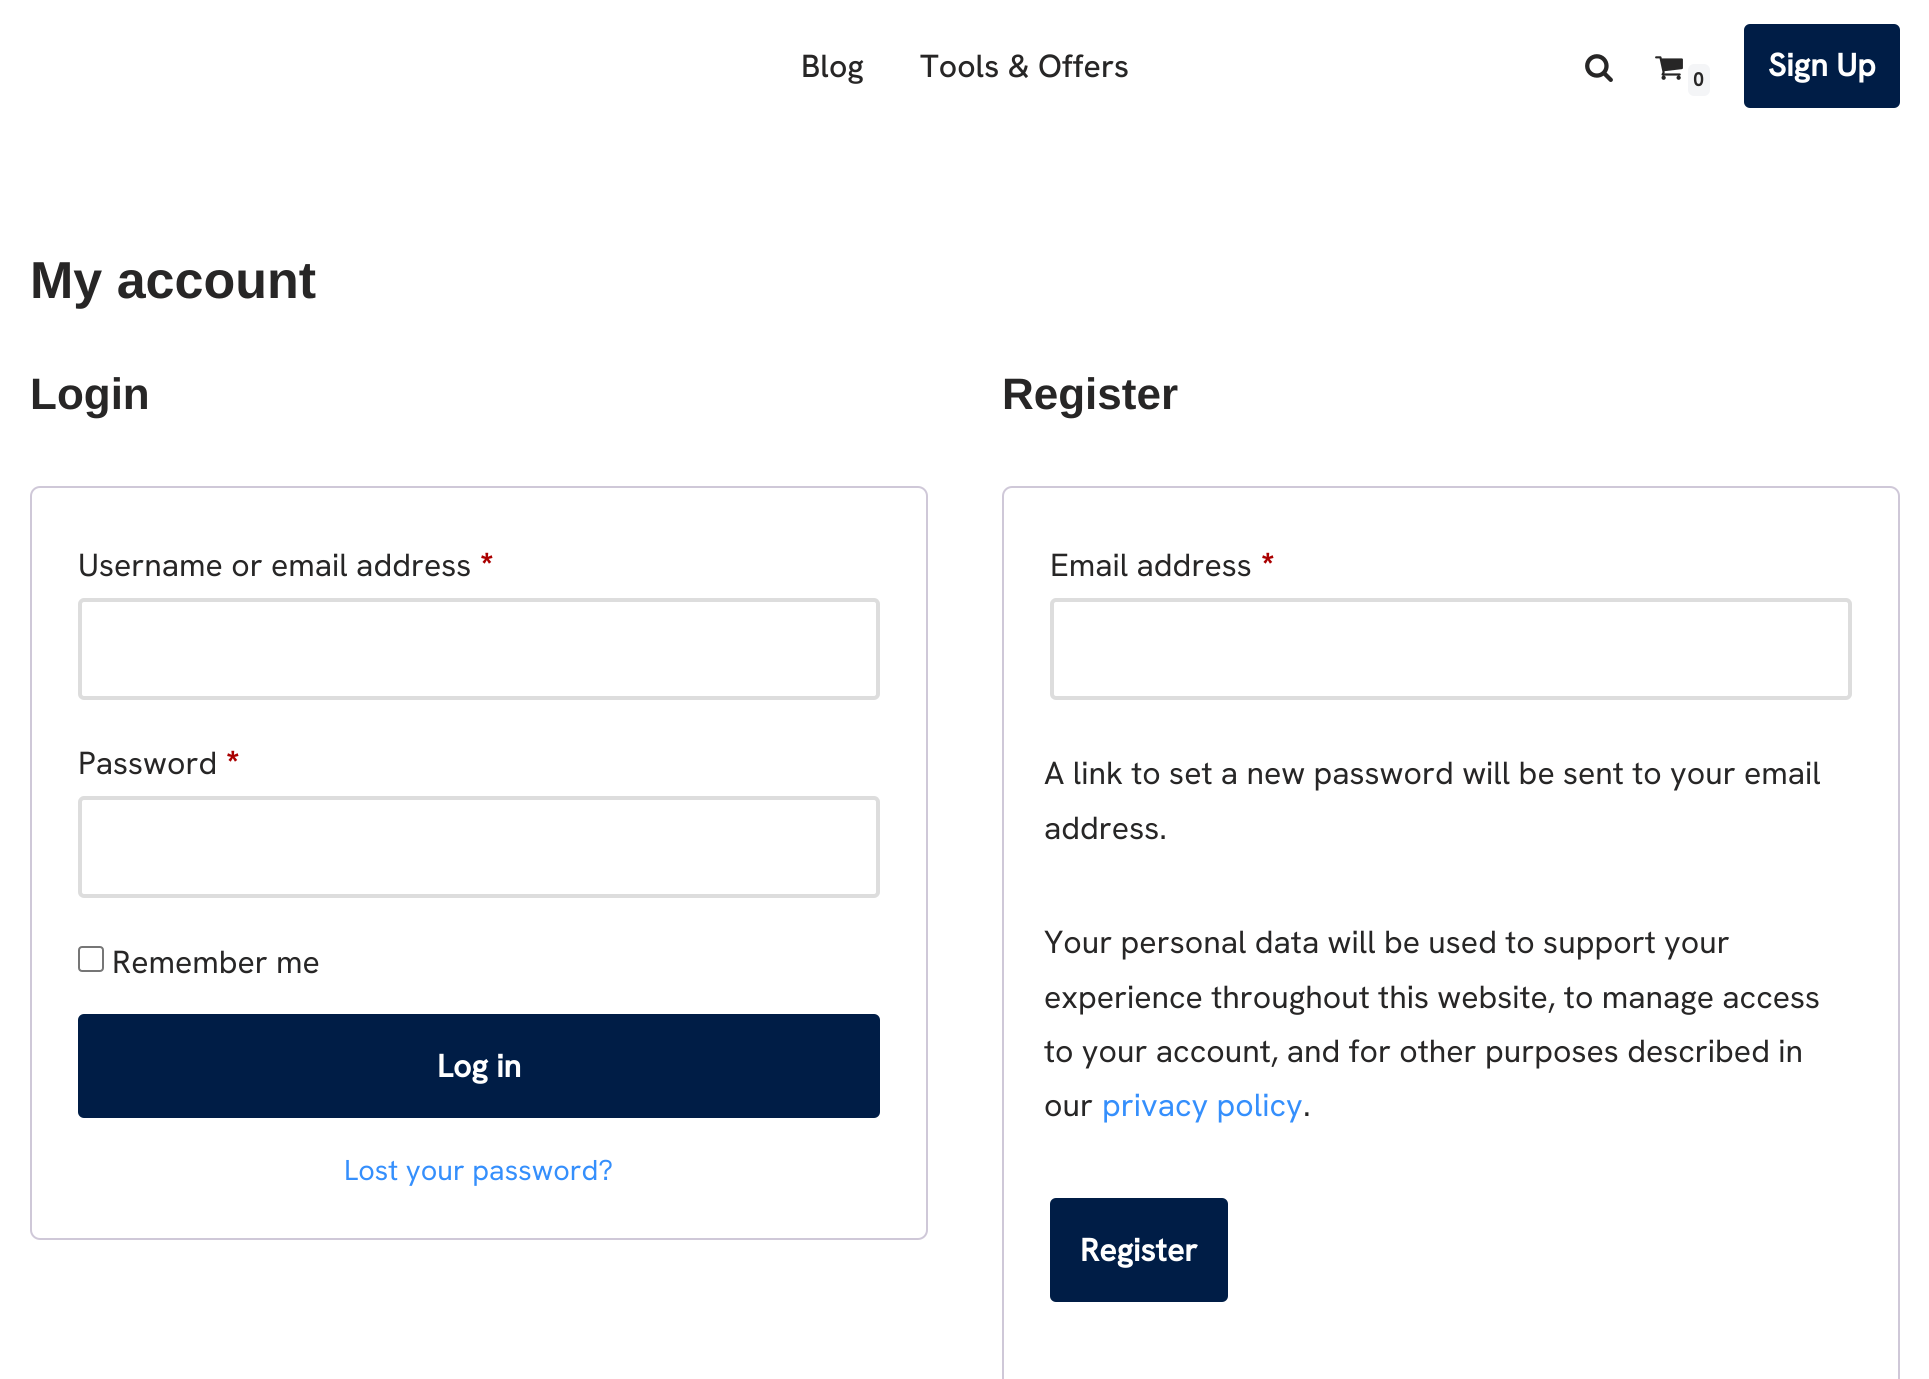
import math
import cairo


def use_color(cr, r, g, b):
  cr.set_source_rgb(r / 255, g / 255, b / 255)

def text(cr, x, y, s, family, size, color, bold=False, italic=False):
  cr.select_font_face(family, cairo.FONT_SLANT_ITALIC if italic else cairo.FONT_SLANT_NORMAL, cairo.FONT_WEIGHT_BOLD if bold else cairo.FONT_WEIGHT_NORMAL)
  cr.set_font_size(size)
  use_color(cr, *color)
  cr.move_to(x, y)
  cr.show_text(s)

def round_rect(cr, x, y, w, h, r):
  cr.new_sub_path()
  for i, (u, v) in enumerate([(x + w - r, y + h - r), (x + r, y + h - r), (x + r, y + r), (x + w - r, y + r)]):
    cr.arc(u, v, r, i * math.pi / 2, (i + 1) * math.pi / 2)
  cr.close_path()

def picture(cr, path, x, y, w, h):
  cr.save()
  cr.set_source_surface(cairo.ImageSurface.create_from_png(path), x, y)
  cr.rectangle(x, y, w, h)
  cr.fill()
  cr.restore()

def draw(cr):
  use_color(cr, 255, 255, 255)
  cr.paint()
  picture(cr, "img_01.png", 1585, 54, 28, 28)
  picture(cr, "img_02.png", 1655, 56, 28, 24)
  use_color(cr, 244, 245, 247)
  round_rect(cr, 1688, 64, 22, 32, 6)
  cr.fill()
  use_color(cr, 0, 29, 70)
  round_rect(cr, 1744, 24, 156, 84, 6)
  cr.fill()
  round_rect(cr, 31, 487, 896, 752, 9)
  use_color(cr, 207, 200, 216)
  cr.stroke()
  round_rect(cr, 80, 600, 798, 98, 4)
  use_color(cr, 221, 221, 221)
  cr.set_line_width(4)
  cr.stroke()
  round_rect(cr, 80, 798, 798, 98, 4)
  cr.stroke()
  round_rect(cr, 79, 947, 24, 24, 3)
  use_color(cr, 118, 118, 118)
  cr.set_line_width(2)
  cr.stroke()
  use_color(cr, 0, 29, 70)
  round_rect(cr, 78, 1014, 802, 104, 6)
  cr.fill()
  round_rect(cr, 1003, 487, 896, 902, 9)
  use_color(cr, 207, 200, 216)
  cr.stroke()
  round_rect(cr, 1052, 600, 798, 98, 4)
  use_color(cr, 221, 221, 221)
  cr.set_line_width(4)
  cr.stroke()
  use_color(cr, 0, 29, 70)
  round_rect(cr, 1050, 1198, 178, 104, 6)
  cr.fill()
  text(cr, 801, 77, "Blog", "Hanken Grotesk Medium", 32, (39, 38, 38))
  text(cr, 920, 77, "Tools & Offers", "Hanken Grotesk Medium", 32, (39, 38, 38))
  text(cr, 1693, 86, "0", "Hanken Grotesk", 19, (39, 38, 38), bold=True)
  text(cr, 1768, 76, "Sign Up", "Hanken Grotesk", 32, (255, 255, 255), bold=True)
  text(cr, 30, 298, "My account", "Liberation Sans", 52, (39, 38, 38), bold=True)
  text(cr, 30, 409, "Login", "Liberation Sans", 44, (39, 38, 38), bold=True)
  text(cr, 78, 576, "Username or email address", "Hanken Grotesk", 32, (39, 38, 38))
  text(cr, 480, 576, "*", "Hanken Grotesk", 32, (170, 0, 0), bold=True)
  text(cr, 78, 774, "Password", "Hanken Grotesk", 32, (39, 38, 38))
  text(cr, 226, 774, "*", "Hanken Grotesk", 32, (170, 0, 0), bold=True)
  text(cr, 112, 973, "Remember me", "Hanken Grotesk", 32, (39, 38, 38))
  text(cr, 437, 1077, "Log in", "Hanken Grotesk", 32, (255, 255, 255), bold=True)
  text(cr, 344, 1180, "Lost your password?", "Hanken Grotesk", 28.75, (53, 143, 252))
  text(cr, 1002, 409, "Register", "Liberation Sans", 44, (39, 38, 38), bold=True)
  text(cr, 1050, 576, "Email address", "Hanken Grotesk", 32, (39, 38, 38))
  text(cr, 1261, 576, "*", "Hanken Grotesk", 32, (170, 0, 0), bold=True)
  text(cr, 1044, 784, "A link to set a new password will be sent to your email", "Hanken Grotesk", 32, (39, 38, 38))
  text(cr, 1044, 839, "address.", "Hanken Grotesk", 32, (39, 38, 38))
  text(cr, 1044, 953, "Your personal data will be used to support your", "Hanken Grotesk", 32, (39, 38, 38))
  text(cr, 1044, 1008, "experience throughout this website, to manage access", "Hanken Grotesk", 32, (39, 38, 38))
  text(cr, 1044, 1062, "to your account, and for other purposes described in", "Hanken Grotesk", 32, (39, 38, 38))
  text(cr, 1044, 1116, "our", "Hanken Grotesk", 32, (39, 38, 38))
  text(cr, 1102, 1116, "privacy policy", "Hanken Grotesk", 32, (53, 143, 252))
  text(cr, 1303, 1116, ".", "Hanken Grotesk", 32, (39, 38, 38))
  text(cr, 1080, 1261, "Register", "Hanken Grotesk", 32, (255, 255, 255), bold=True)


surface = cairo.ImageSurface(cairo.FORMAT_RGB24, 1929, 1379)
cr = cairo.Context(surface)
options = cairo.FontOptions()
options.set_hint_metrics(cairo.HINT_METRICS_OFF)
options.set_hint_style(cairo.HINT_STYLE_NONE)
cr.set_font_options(options)
cr.set_miter_limit(4)
draw(cr)
surface.write_to_png("out.png")
